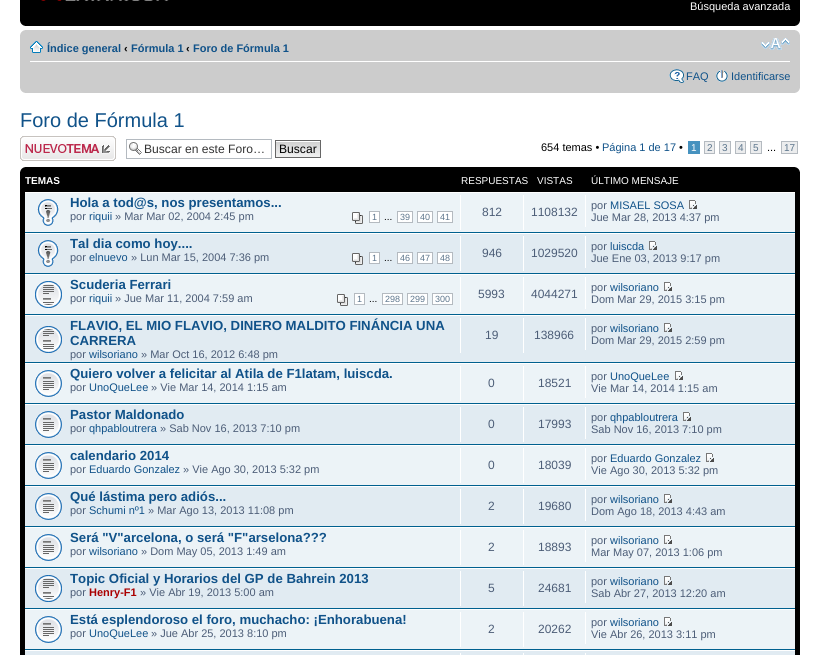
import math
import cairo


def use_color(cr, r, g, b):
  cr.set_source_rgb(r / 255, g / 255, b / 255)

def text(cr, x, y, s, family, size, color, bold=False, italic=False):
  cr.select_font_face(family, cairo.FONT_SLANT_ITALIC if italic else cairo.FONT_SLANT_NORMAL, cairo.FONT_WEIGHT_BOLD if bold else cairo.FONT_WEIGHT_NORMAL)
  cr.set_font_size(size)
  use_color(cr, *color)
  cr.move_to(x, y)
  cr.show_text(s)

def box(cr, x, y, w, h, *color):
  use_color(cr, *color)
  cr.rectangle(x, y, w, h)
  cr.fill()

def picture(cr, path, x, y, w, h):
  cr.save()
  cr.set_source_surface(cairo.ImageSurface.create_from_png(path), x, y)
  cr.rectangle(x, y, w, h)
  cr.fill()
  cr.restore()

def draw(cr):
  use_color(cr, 255, 255, 255)
  cr.paint()
  box(cr, 20, 0, 780, 26, 0, 0, 0)
  picture(cr, "img_01.png", 41, 0, 128, 1)
  picture(cr, "img_02.png", 20, 21, 5, 5)
  picture(cr, "img_03.png", 795, 21, 5, 5)
  box(cr, 20, 30, 780, 63, 204, 204, 204)
  picture(cr, "img_04.png", 20, 30, 5, 5)
  picture(cr, "img_05.png", 795, 30, 5, 5)
  box(cr, 30, 61, 760, 1, 255, 255, 255)
  picture(cr, "img_06.png", 30, 41, 13, 12)
  picture(cr, "img_07.png", 761, 38, 29, 12)
  picture(cr, "img_08.png", 669, 69, 16, 14)
  picture(cr, "img_09.png", 716, 70, 12, 12)
  picture(cr, "img_10.png", 20, 88, 5, 5)
  picture(cr, "img_11.png", 795, 88, 5, 5)
  picture(cr, "img_12.png", 20, 136, 96, 25)
  picture(cr, "img_13.png", 129, 142, 13, 13)
  cr.rectangle(126.5, 139.5, 145, 19)
  use_color(cr, 180, 186, 192)
  cr.set_line_width(1)
  cr.stroke()
  picture(cr, "img_14.png", 276, 141, 44, 16)
  cr.rectangle(275.5, 140.5, 45, 17)
  use_color(cr, 102, 102, 102)
  cr.stroke()
  box(cr, 688, 141, 12, 13, 70, 146, 191)
  use_color(cr, 236, 237, 238)
  cr.rectangle(704.5, 141.5, 10, 12)
  cr.fill_preserve()
  use_color(cr, 180, 186, 192)
  cr.stroke()
  use_color(cr, 236, 237, 238)
  cr.rectangle(719.5, 141.5, 11, 12)
  cr.fill_preserve()
  use_color(cr, 180, 186, 192)
  cr.stroke()
  use_color(cr, 236, 237, 238)
  cr.rectangle(735.5, 141.5, 10, 12)
  cr.fill_preserve()
  use_color(cr, 180, 186, 192)
  cr.stroke()
  use_color(cr, 236, 237, 238)
  cr.rectangle(750.5, 141.5, 11, 12)
  cr.fill_preserve()
  use_color(cr, 180, 186, 192)
  cr.stroke()
  use_color(cr, 236, 237, 238)
  cr.rectangle(781.5, 141.5, 16, 12)
  cr.fill_preserve()
  use_color(cr, 180, 186, 192)
  cr.stroke()
  box(cr, 20, 167, 780, 488, 0, 0, 0)
  picture(cr, "img_15.png", 20, 167, 6, 5)
  picture(cr, "img_16.png", 794, 167, 6, 5)
  box(cr, 25, 193, 770, 39, 236, 243, 247)
  box(cr, 25, 192, 770, 1, 255, 255, 255)
  box(cr, 25, 232, 770, 1, 0, 96, 143)
  picture(cr, "img_17.png", 37, 199, 22, 27)
  picture(cr, "img_18.png", 352, 212, 11, 12)
  use_color(cr, 255, 255, 255)
  cr.rectangle(369.5, 211.5, 10, 11)
  cr.fill_preserve()
  use_color(cr, 180, 186, 192)
  cr.stroke()
  use_color(cr, 255, 255, 255)
  cr.rectangle(397.5, 211.5, 15, 11)
  cr.fill_preserve()
  use_color(cr, 180, 186, 192)
  cr.stroke()
  use_color(cr, 255, 255, 255)
  cr.rectangle(417.5, 211.5, 15, 11)
  cr.fill_preserve()
  use_color(cr, 180, 186, 192)
  cr.stroke()
  use_color(cr, 255, 255, 255)
  cr.rectangle(437.5, 211.5, 15, 11)
  cr.fill_preserve()
  use_color(cr, 180, 186, 192)
  cr.stroke()
  box(cr, 460, 195, 1, 35, 255, 255, 255)
  box(cr, 523, 195, 1, 35, 255, 255, 255)
  box(cr, 585, 195, 1, 32, 255, 255, 255)
  picture(cr, "img_19.png", 689, 200, 8, 9)
  box(cr, 25, 234, 770, 39, 225, 235, 242)
  box(cr, 25, 233, 770, 1, 255, 255, 255)
  box(cr, 25, 273, 770, 1, 0, 96, 143)
  picture(cr, "img_20.png", 37, 240, 22, 27)
  picture(cr, "img_21.png", 352, 253, 11, 12)
  use_color(cr, 255, 255, 255)
  cr.rectangle(369.5, 252.5, 10, 11)
  cr.fill_preserve()
  use_color(cr, 180, 186, 192)
  cr.stroke()
  use_color(cr, 255, 255, 255)
  cr.rectangle(397.5, 252.5, 15, 11)
  cr.fill_preserve()
  use_color(cr, 180, 186, 192)
  cr.stroke()
  use_color(cr, 255, 255, 255)
  cr.rectangle(417.5, 252.5, 15, 11)
  cr.fill_preserve()
  use_color(cr, 180, 186, 192)
  cr.stroke()
  use_color(cr, 255, 255, 255)
  cr.rectangle(437.5, 252.5, 15, 11)
  cr.fill_preserve()
  use_color(cr, 180, 186, 192)
  cr.stroke()
  box(cr, 460, 236, 1, 35, 255, 255, 255)
  box(cr, 523, 236, 1, 35, 255, 255, 255)
  box(cr, 585, 236, 1, 32, 255, 255, 255)
  picture(cr, "img_22.png", 649, 241, 8, 9)
  box(cr, 25, 275, 770, 39, 236, 243, 247)
  box(cr, 25, 274, 770, 1, 255, 255, 255)
  box(cr, 25, 314, 770, 1, 0, 96, 143)
  picture(cr, "img_23.png", 35, 281, 27, 27)
  picture(cr, "img_18.png", 337, 294, 11, 12)
  use_color(cr, 255, 255, 255)
  cr.rectangle(354.5, 293.5, 10, 11)
  cr.fill_preserve()
  use_color(cr, 180, 186, 192)
  cr.stroke()
  use_color(cr, 255, 255, 255)
  cr.rectangle(382.5, 293.5, 20, 11)
  cr.fill_preserve()
  use_color(cr, 180, 186, 192)
  cr.stroke()
  use_color(cr, 255, 255, 255)
  cr.rectangle(407.5, 293.5, 20, 11)
  cr.fill_preserve()
  use_color(cr, 180, 186, 192)
  cr.stroke()
  use_color(cr, 255, 255, 255)
  cr.rectangle(432.5, 293.5, 20, 11)
  cr.fill_preserve()
  use_color(cr, 180, 186, 192)
  cr.stroke()
  box(cr, 460, 277, 1, 35, 255, 255, 255)
  box(cr, 523, 277, 1, 35, 255, 255, 255)
  box(cr, 585, 277, 1, 32, 255, 255, 255)
  picture(cr, "img_19.png", 664, 282, 8, 9)
  box(cr, 25, 316, 770, 46, 225, 235, 242)
  box(cr, 25, 315, 770, 1, 255, 255, 255)
  box(cr, 25, 362, 770, 1, 0, 96, 143)
  picture(cr, "img_24.png", 35, 326, 27, 27)
  box(cr, 460, 318, 1, 35, 255, 255, 255)
  box(cr, 523, 318, 1, 35, 255, 255, 255)
  box(cr, 585, 318, 1, 32, 255, 255, 255)
  picture(cr, "img_22.png", 664, 323, 8, 9)
  box(cr, 25, 364, 770, 39, 236, 243, 247)
  box(cr, 25, 363, 770, 1, 255, 255, 255)
  box(cr, 25, 403, 770, 1, 0, 96, 143)
  picture(cr, "img_25.png", 35, 370, 27, 27)
  box(cr, 460, 366, 1, 35, 255, 255, 255)
  box(cr, 523, 366, 1, 35, 255, 255, 255)
  box(cr, 585, 366, 1, 32, 255, 255, 255)
  picture(cr, "img_19.png", 675, 371, 8, 9)
  box(cr, 25, 405, 770, 39, 225, 235, 242)
  box(cr, 25, 404, 770, 1, 255, 255, 255)
  box(cr, 25, 444, 770, 1, 0, 96, 143)
  picture(cr, "img_26.png", 35, 411, 27, 27)
  box(cr, 460, 407, 1, 35, 255, 255, 255)
  box(cr, 523, 407, 1, 35, 255, 255, 255)
  box(cr, 585, 407, 1, 32, 255, 255, 255)
  picture(cr, "img_22.png", 683, 412, 8, 9)
  box(cr, 25, 446, 770, 39, 236, 243, 247)
  box(cr, 25, 445, 770, 1, 255, 255, 255)
  box(cr, 25, 485, 770, 1, 0, 96, 143)
  picture(cr, "img_25.png", 35, 452, 27, 27)
  box(cr, 460, 448, 1, 35, 255, 255, 255)
  box(cr, 523, 448, 1, 35, 255, 255, 255)
  box(cr, 585, 448, 1, 32, 255, 255, 255)
  picture(cr, "img_19.png", 706, 453, 8, 9)
  box(cr, 25, 487, 770, 39, 225, 235, 242)
  box(cr, 25, 486, 770, 1, 255, 255, 255)
  box(cr, 25, 526, 770, 1, 0, 96, 143)
  picture(cr, "img_26.png", 35, 493, 27, 27)
  box(cr, 460, 489, 1, 35, 255, 255, 255)
  box(cr, 523, 489, 1, 35, 255, 255, 255)
  box(cr, 585, 489, 1, 32, 255, 255, 255)
  picture(cr, "img_22.png", 664, 494, 8, 9)
  box(cr, 25, 528, 770, 39, 236, 243, 247)
  box(cr, 25, 527, 770, 1, 255, 255, 255)
  box(cr, 25, 567, 770, 1, 0, 96, 143)
  picture(cr, "img_25.png", 35, 534, 27, 27)
  box(cr, 460, 530, 1, 35, 255, 255, 255)
  box(cr, 523, 530, 1, 35, 255, 255, 255)
  box(cr, 585, 530, 1, 32, 255, 255, 255)
  picture(cr, "img_19.png", 664, 535, 8, 9)
  box(cr, 25, 569, 770, 39, 225, 235, 242)
  box(cr, 25, 568, 770, 1, 255, 255, 255)
  box(cr, 25, 608, 770, 1, 0, 96, 143)
  picture(cr, "img_27.png", 35, 575, 27, 27)
  box(cr, 460, 571, 1, 35, 255, 255, 255)
  box(cr, 523, 571, 1, 35, 255, 255, 255)
  box(cr, 585, 571, 1, 32, 255, 255, 255)
  picture(cr, "img_22.png", 664, 576, 8, 9)
  box(cr, 25, 610, 770, 39, 236, 243, 247)
  box(cr, 25, 609, 770, 1, 255, 255, 255)
  box(cr, 25, 649, 770, 1, 0, 96, 143)
  picture(cr, "img_25.png", 35, 616, 27, 27)
  box(cr, 460, 612, 1, 35, 255, 255, 255)
  box(cr, 523, 612, 1, 35, 255, 255, 255)
  box(cr, 585, 612, 1, 32, 255, 255, 255)
  picture(cr, "img_19.png", 664, 617, 8, 9)
  box(cr, 25, 651, 770, 4, 225, 235, 242)
  box(cr, 25, 650, 770, 1, 255, 255, 255)
  box(cr, 460, 653, 1, 2, 255, 255, 255)
  box(cr, 523, 653, 1, 2, 255, 255, 255)
  box(cr, 585, 653, 1, 2, 255, 255, 255)
  text(cr, 690, 10, "Búsqueda avanzada", "Liberation Sans", 11, (255, 255, 255))
  text(cr, 47, 52, "Índice general", "Liberation Sans", 11, (16, 82, 137), bold=True)
  text(cr, 124, 52, "‹", "Liberation Sans", 11, (0, 0, 0), bold=True)
  text(cr, 131, 52, "Fórmula 1", "Liberation Sans", 11, (16, 82, 137), bold=True)
  text(cr, 186, 52, "‹", "Liberation Sans", 11, (0, 0, 0), bold=True)
  text(cr, 193, 52, "Foro de Fórmula 1", "Liberation Sans", 11, (16, 82, 137), bold=True)
  text(cr, 686, 80, "FAQ", "Liberation Sans", 11, (16, 82, 137))
  text(cr, 731, 80, "Identificarse", "Liberation Sans", 11, (16, 82, 137))
  text(cr, 20, 127, "Foro de Fórmula 1", "Liberation Sans", 20, (16, 82, 137))
  text(cr, 144, 153, "Buscar en este Foro…", "Liberation Sans", 12.1, (51, 51, 51))
  text(cr, 279, 153, "Buscar", "Liberation Sans", 12.1, (0, 0, 0))
  text(cr, 541, 151, "654 temas •", "Liberation Sans", 11, (0, 0, 0))
  text(cr, 602, 151, "Página 1 de 17", "Liberation Sans", 11, (16, 82, 137))
  text(cr, 679, 151, "•", "Liberation Sans", 11, (0, 0, 0))
  text(cr, 691, 151, "1", "Liberation Sans", 10, (255, 255, 255))
  text(cr, 707, 151, "2", "Liberation Sans", 10, (92, 117, 140))
  text(cr, 722, 151, "3", "Liberation Sans", 10, (92, 117, 140))
  text(cr, 738, 151, "4", "Liberation Sans", 10, (92, 117, 140))
  text(cr, 753, 151, "5", "Liberation Sans", 10, (92, 117, 140))
  text(cr, 784, 151, "17", "Liberation Sans", 10, (92, 117, 140))
  text(cr, 767, 151, "...", "Liberation Sans", 11, (0, 0, 0))
  text(cr, 25, 184, "TEMAS", "Liberation Sans", 10, (255, 255, 255), bold=True)
  text(cr, 461, 184, "RESPUESTAS", "Liberation Sans", 10, (255, 255, 255))
  text(cr, 537, 184, "VISTAS", "Liberation Sans", 10, (255, 255, 255))
  text(cr, 591, 184, "ÚLTIMO MENSAJE", "Liberation Sans", 10, (255, 255, 255))
  text(cr, 70, 207, "Hola a tod@s, nos presentamos...", "Liberation Sans", 13.2, (16, 82, 137), bold=True)
  text(cr, 70, 220, "por", "Liberation Sans", 11, (76, 93, 119))
  text(cr, 89, 220, "riquii", "Liberation Sans", 11, (16, 82, 137))
  text(cr, 115, 220, "» Mar Mar 02, 2004 2:45 pm", "Liberation Sans", 11, (76, 93, 119))
  text(cr, 372, 220, "1", "Liberation Sans", 9, (92, 117, 140))
  text(cr, 384, 220, "...", "Liberation Sans", 10, (0, 0, 0))
  text(cr, 400, 220, "39", "Liberation Sans", 9, (92, 117, 140))
  text(cr, 420, 220, "40", "Liberation Sans", 9, (92, 117, 140))
  text(cr, 440, 220, "41", "Liberation Sans", 9, (92, 117, 140))
  text(cr, 482, 216, "812", "Liberation Sans", 12, (76, 93, 119))
  text(cr, 531, 216, "1108132", "Liberation Sans", 12, (76, 93, 119))
  text(cr, 591, 209, "por", "Liberation Sans", 11, (76, 93, 119))
  text(cr, 610, 209, "MISAEL SOSA", "Liberation Sans", 11, (16, 82, 137))
  text(cr, 591, 221, "Jue Mar 28, 2013 4:37 pm", "Liberation Sans", 11, (76, 93, 119))
  text(cr, 70, 248, "Tal dia como hoy....", "Liberation Sans", 13.2, (16, 82, 137), bold=True)
  text(cr, 70, 261, "por", "Liberation Sans", 11, (76, 93, 119))
  text(cr, 89, 261, "elnuevo", "Liberation Sans", 11, (16, 82, 137))
  text(cr, 131, 261, "» Lun Mar 15, 2004 7:36 pm", "Liberation Sans", 11, (76, 93, 119))
  text(cr, 372, 261, "1", "Liberation Sans", 9, (92, 117, 140))
  text(cr, 384, 261, "...", "Liberation Sans", 10, (0, 0, 0))
  text(cr, 400, 261, "46", "Liberation Sans", 9, (92, 117, 140))
  text(cr, 420, 261, "47", "Liberation Sans", 9, (92, 117, 140))
  text(cr, 440, 261, "48", "Liberation Sans", 9, (92, 117, 140))
  text(cr, 482, 257, "946", "Liberation Sans", 12, (76, 93, 119))
  text(cr, 531, 257, "1029520", "Liberation Sans", 12, (76, 93, 119))
  text(cr, 591, 250, "por", "Liberation Sans", 11, (76, 93, 119))
  text(cr, 610, 250, "luiscda", "Liberation Sans", 11, (16, 82, 137))
  text(cr, 591, 262, "Jue Ene 03, 2013 9:17 pm", "Liberation Sans", 11, (76, 93, 119))
  text(cr, 70, 289, "Scuderia Ferrari", "Liberation Sans", 13.2, (16, 82, 137), bold=True)
  text(cr, 70, 302, "por", "Liberation Sans", 11, (76, 93, 119))
  text(cr, 89, 302, "riquii", "Liberation Sans", 11, (16, 82, 137))
  text(cr, 115, 302, "» Jue Mar 11, 2004 7:59 am", "Liberation Sans", 11, (76, 93, 119))
  text(cr, 357, 302, "1", "Liberation Sans", 9, (92, 117, 140))
  text(cr, 369, 302, "...", "Liberation Sans", 10, (0, 0, 0))
  text(cr, 385, 302, "298", "Liberation Sans", 9, (92, 117, 140))
  text(cr, 410, 302, "299", "Liberation Sans", 9, (92, 117, 140))
  text(cr, 435, 302, "300", "Liberation Sans", 9, (92, 117, 140))
  text(cr, 478, 298, "5993", "Liberation Sans", 12, (76, 93, 119))
  text(cr, 531, 298, "4044271", "Liberation Sans", 12, (76, 93, 119))
  text(cr, 591, 291, "por", "Liberation Sans", 11, (76, 93, 119))
  text(cr, 610, 291, "wilsoriano", "Liberation Sans", 11, (16, 82, 137))
  text(cr, 591, 303, "Dom Mar 29, 2015 3:15 pm", "Liberation Sans", 11, (76, 93, 119))
  text(cr, 70, 330, "FLAVIO, EL MIO FLAVIO, DINERO MALDITO FINÁNCIA UNA", "Liberation Sans", 13.2, (16, 82, 137), bold=True)
  text(cr, 70, 345, "CARRERA", "Liberation Sans", 13.2, (16, 82, 137), bold=True)
  text(cr, 70, 358, "por", "Liberation Sans", 11, (76, 93, 119))
  text(cr, 89, 358, "wilsoriano", "Liberation Sans", 11, (16, 82, 137))
  text(cr, 141, 358, "» Mar Oct 16, 2012 6:48 pm", "Liberation Sans", 11, (76, 93, 119))
  text(cr, 485, 339, "19", "Liberation Sans", 12, (76, 93, 119))
  text(cr, 534, 339, "138966", "Liberation Sans", 12, (76, 93, 119))
  text(cr, 591, 332, "por", "Liberation Sans", 11, (76, 93, 119))
  text(cr, 610, 332, "wilsoriano", "Liberation Sans", 11, (16, 82, 137))
  text(cr, 591, 344, "Dom Mar 29, 2015 2:59 pm", "Liberation Sans", 11, (76, 93, 119))
  text(cr, 70, 378, "Quiero volver a felicitar al Atila de F1latam, luiscda.", "Liberation Sans", 13.2, (16, 82, 137), bold=True)
  text(cr, 70, 391, "por", "Liberation Sans", 11, (76, 93, 119))
  text(cr, 89, 391, "UnoQueLee", "Liberation Sans", 11, (16, 82, 137))
  text(cr, 151, 391, "» Vie Mar 14, 2014 1:15 am", "Liberation Sans", 11, (76, 93, 119))
  text(cr, 488, 387, "0", "Liberation Sans", 12, (76, 93, 119))
  text(cr, 538, 387, "18521", "Liberation Sans", 12, (76, 93, 119))
  text(cr, 591, 380, "por", "Liberation Sans", 11, (76, 93, 119))
  text(cr, 610, 380, "UnoQueLee", "Liberation Sans", 11, (16, 82, 137))
  text(cr, 591, 392, "Vie Mar 14, 2014 1:15 am", "Liberation Sans", 11, (76, 93, 119))
  text(cr, 70, 419, "Pastor Maldonado", "Liberation Sans", 13.2, (16, 82, 137), bold=True)
  text(cr, 70, 432, "por", "Liberation Sans", 11, (76, 93, 119))
  text(cr, 89, 432, "qhpabloutrera", "Liberation Sans", 11, (16, 82, 137))
  text(cr, 160, 432, "» Sab Nov 16, 2013 7:10 pm", "Liberation Sans", 11, (76, 93, 119))
  text(cr, 488, 428, "0", "Liberation Sans", 12, (76, 93, 119))
  text(cr, 538, 428, "17993", "Liberation Sans", 12, (76, 93, 119))
  text(cr, 591, 421, "por", "Liberation Sans", 11, (76, 93, 119))
  text(cr, 610, 421, "qhpabloutrera", "Liberation Sans", 11, (16, 82, 137))
  text(cr, 591, 433, "Sab Nov 16, 2013 7:10 pm", "Liberation Sans", 11, (76, 93, 119))
  text(cr, 70, 460, "calendario 2014", "Liberation Sans", 13.2, (16, 82, 137), bold=True)
  text(cr, 70, 473, "por", "Liberation Sans", 11, (76, 93, 119))
  text(cr, 89, 473, "Eduardo Gonzalez", "Liberation Sans", 11, (16, 82, 137))
  text(cr, 183, 473, "» Vie Ago 30, 2013 5:32 pm", "Liberation Sans", 11, (76, 93, 119))
  text(cr, 488, 469, "0", "Liberation Sans", 12, (76, 93, 119))
  text(cr, 538, 469, "18039", "Liberation Sans", 12, (76, 93, 119))
  text(cr, 591, 462, "por", "Liberation Sans", 11, (76, 93, 119))
  text(cr, 610, 462, "Eduardo Gonzalez", "Liberation Sans", 11, (16, 82, 137))
  text(cr, 591, 474, "Vie Ago 30, 2013 5:32 pm", "Liberation Sans", 11, (76, 93, 119))
  text(cr, 70, 501, "Qué lástima pero adiós...", "Liberation Sans", 13.2, (16, 82, 137), bold=True)
  text(cr, 70, 514, "por", "Liberation Sans", 11, (76, 93, 119))
  text(cr, 89, 514, "Schumi nº1", "Liberation Sans", 11, (16, 82, 137))
  text(cr, 148, 514, "» Mar Ago 13, 2013 11:08 pm", "Liberation Sans", 11, (76, 93, 119))
  text(cr, 488, 510, "2", "Liberation Sans", 12, (76, 93, 119))
  text(cr, 538, 510, "19680", "Liberation Sans", 12, (76, 93, 119))
  text(cr, 591, 503, "por", "Liberation Sans", 11, (76, 93, 119))
  text(cr, 610, 503, "wilsoriano", "Liberation Sans", 11, (16, 82, 137))
  text(cr, 591, 515, "Dom Ago 18, 2013 4:43 am", "Liberation Sans", 11, (76, 93, 119))
  text(cr, 70, 542, "Será \"V\"arcelona, o será \"F\"arselona???", "Liberation Sans", 13.2, (16, 82, 137), bold=True)
  text(cr, 70, 555, "por", "Liberation Sans", 11, (76, 93, 119))
  text(cr, 89, 555, "wilsoriano", "Liberation Sans", 11, (16, 82, 137))
  text(cr, 141, 555, "» Dom May 05, 2013 1:49 am", "Liberation Sans", 11, (76, 93, 119))
  text(cr, 488, 551, "2", "Liberation Sans", 12, (76, 93, 119))
  text(cr, 538, 551, "18893", "Liberation Sans", 12, (76, 93, 119))
  text(cr, 591, 544, "por", "Liberation Sans", 11, (76, 93, 119))
  text(cr, 610, 544, "wilsoriano", "Liberation Sans", 11, (16, 82, 137))
  text(cr, 591, 556, "Mar May 07, 2013 1:06 pm", "Liberation Sans", 11, (76, 93, 119))
  text(cr, 70, 583, "Topic Oficial y Horarios del GP de Bahrein 2013", "Liberation Sans", 13.2, (16, 82, 137), bold=True)
  text(cr, 70, 596, "por", "Liberation Sans", 11, (76, 93, 119))
  text(cr, 89, 596, "Henry-F1", "Liberation Sans", 11, (170, 0, 0), bold=True)
  text(cr, 140, 596, "» Vie Abr 19, 2013 5:00 am", "Liberation Sans", 11, (76, 93, 119))
  text(cr, 488, 592, "5", "Liberation Sans", 12, (76, 93, 119))
  text(cr, 538, 592, "24681", "Liberation Sans", 12, (76, 93, 119))
  text(cr, 591, 585, "por", "Liberation Sans", 11, (76, 93, 119))
  text(cr, 610, 585, "wilsoriano", "Liberation Sans", 11, (16, 82, 137))
  text(cr, 591, 597, "Sab Abr 27, 2013 12:20 am", "Liberation Sans", 11, (76, 93, 119))
  text(cr, 70, 624, "Está esplendoroso el foro, muchacho: ¡Enhorabuena!", "Liberation Sans", 13.2, (16, 82, 137), bold=True)
  text(cr, 70, 637, "por", "Liberation Sans", 11, (76, 93, 119))
  text(cr, 89, 637, "UnoQueLee", "Liberation Sans", 11, (16, 82, 137))
  text(cr, 151, 637, "» Jue Abr 25, 2013 8:10 pm", "Liberation Sans", 11, (76, 93, 119))
  text(cr, 488, 633, "2", "Liberation Sans", 12, (76, 93, 119))
  text(cr, 538, 633, "20262", "Liberation Sans", 12, (76, 93, 119))
  text(cr, 591, 626, "por", "Liberation Sans", 11, (76, 93, 119))
  text(cr, 610, 626, "wilsoriano", "Liberation Sans", 11, (16, 82, 137))
  text(cr, 591, 638, "Vie Abr 26, 2013 3:11 pm", "Liberation Sans", 11, (76, 93, 119))


surface = cairo.ImageSurface(cairo.FORMAT_RGB24, 820, 655)
cr = cairo.Context(surface)
options = cairo.FontOptions()
options.set_hint_metrics(cairo.HINT_METRICS_OFF)
options.set_hint_style(cairo.HINT_STYLE_NONE)
cr.set_font_options(options)
cr.set_miter_limit(4)
draw(cr)
surface.write_to_png("out.png")
